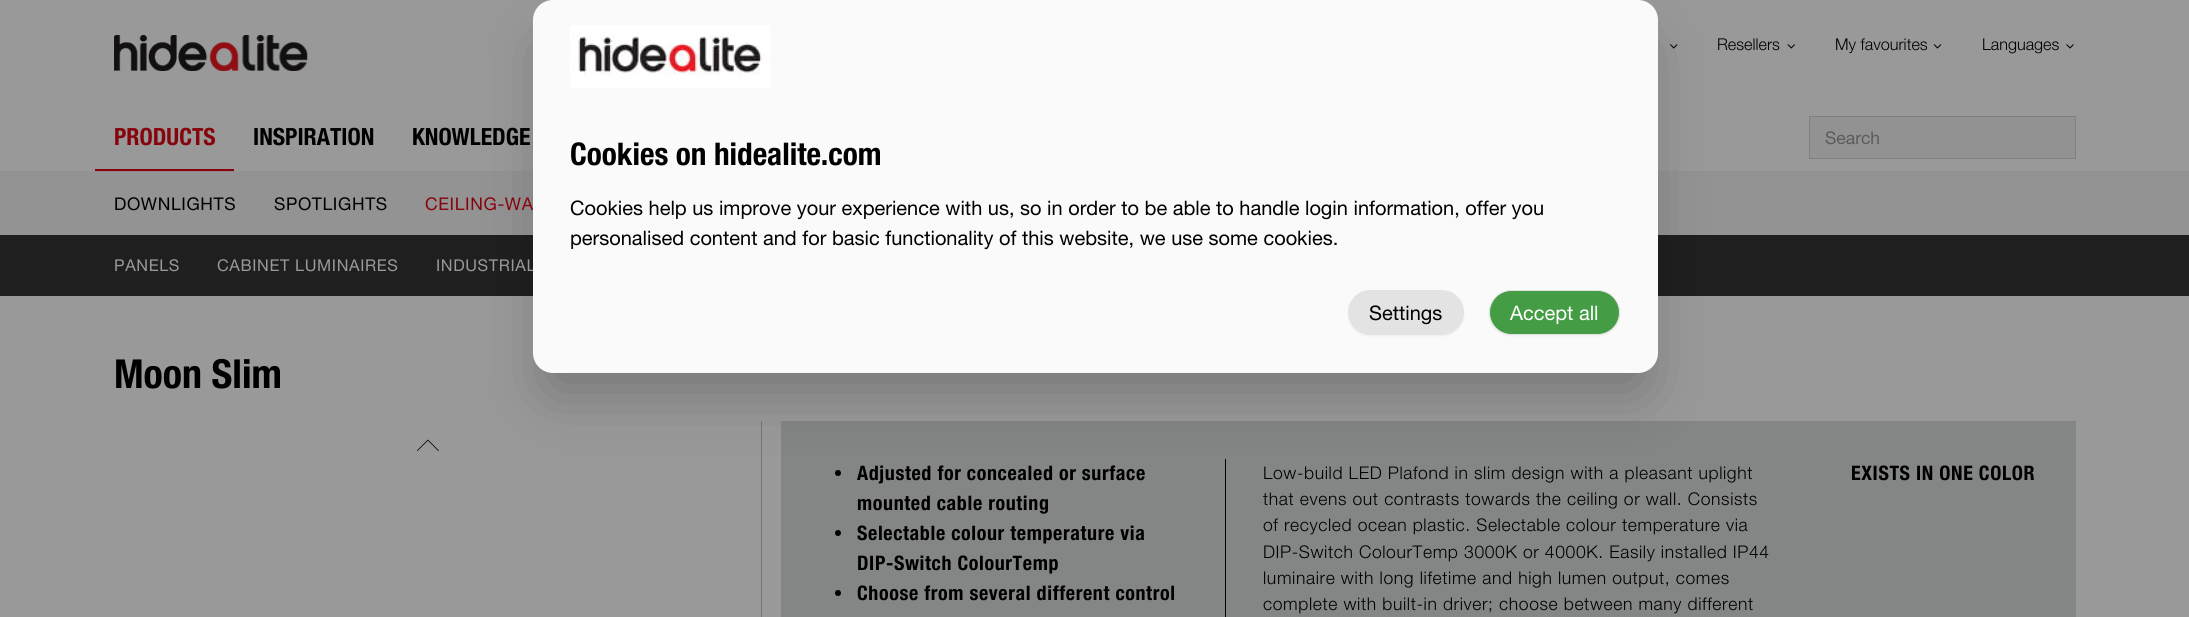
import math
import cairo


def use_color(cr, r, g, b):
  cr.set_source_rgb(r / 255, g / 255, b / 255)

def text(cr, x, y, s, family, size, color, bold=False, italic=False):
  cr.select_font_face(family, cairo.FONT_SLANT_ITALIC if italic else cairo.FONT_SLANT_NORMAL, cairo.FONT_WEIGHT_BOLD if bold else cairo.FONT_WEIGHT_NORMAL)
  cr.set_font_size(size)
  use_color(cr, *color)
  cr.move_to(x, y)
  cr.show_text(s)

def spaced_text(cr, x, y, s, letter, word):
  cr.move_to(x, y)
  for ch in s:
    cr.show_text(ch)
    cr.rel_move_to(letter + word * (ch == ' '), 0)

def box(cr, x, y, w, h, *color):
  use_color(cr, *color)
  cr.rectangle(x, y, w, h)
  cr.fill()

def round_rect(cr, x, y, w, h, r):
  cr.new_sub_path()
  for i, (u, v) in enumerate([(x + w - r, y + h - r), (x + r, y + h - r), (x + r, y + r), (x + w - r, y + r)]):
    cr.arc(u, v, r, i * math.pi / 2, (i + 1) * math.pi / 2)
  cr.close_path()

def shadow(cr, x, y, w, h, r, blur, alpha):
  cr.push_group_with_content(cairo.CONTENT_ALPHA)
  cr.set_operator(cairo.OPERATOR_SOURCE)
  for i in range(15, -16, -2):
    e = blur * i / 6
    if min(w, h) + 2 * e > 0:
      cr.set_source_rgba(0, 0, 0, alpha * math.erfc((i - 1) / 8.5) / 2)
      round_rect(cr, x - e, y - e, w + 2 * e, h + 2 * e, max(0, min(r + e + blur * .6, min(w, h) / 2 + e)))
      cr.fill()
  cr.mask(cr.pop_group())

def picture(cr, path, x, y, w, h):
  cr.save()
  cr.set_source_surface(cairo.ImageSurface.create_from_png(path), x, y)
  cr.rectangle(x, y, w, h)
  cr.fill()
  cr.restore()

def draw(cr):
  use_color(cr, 153, 153, 153)
  cr.paint()
  box(cr, 0, 171, 2189, 64, 148, 147, 147)
  picture(cr, "img_01.png", 114, 35, 194, 36)
  picture(cr, "img_02.png", 1670, 44, 8, 5)
  picture(cr, "img_03.png", 1787, 44, 8, 5)
  picture(cr, "img_04.png", 1933, 44, 9, 5)
  picture(cr, "img_05.png", 2066, 44, 8, 5)
  box(cr, 95, 169, 139, 2, 134, 4, 11)
  box(cr, 95, 171, 139, 1, 146, 132, 133)
  box(cr, 0, 235, 2189, 61, 31, 31, 31)
  box(cr, 1810, 117, 265, 41, 147, 146, 146)
  box(cr, 1809, 116, 267, 1, 127, 128, 128)
  box(cr, 2075, 116, 1, 43, 127, 128, 128)
  box(cr, 1809, 158, 267, 1, 127, 128, 128)
  box(cr, 1809, 116, 1, 43, 127, 128, 128)
  box(cr, 761, 421, 1, 196, 119, 119, 119)
  box(cr, 781, 421, 1295, 196, 132, 133, 133)
  box(cr, 1225, 459, 1, 158, 0, 0, 0)
  cr.arc(838, 473, 3, 0, 2 * math.pi)
  cr.fill()
  use_color(cr, 0, 0, 0)
  shadow(cr, 548, 46, 1095, 343, 5, 31, 0.25)
  picture(cr, "img_07.png", 417, 439, 22, 12)
  use_color(cr, 0, 0, 0)
  cr.arc(838, 533, 3, 0, 2 * math.pi)
  cr.fill()
  cr.arc(838, 593, 3, 0, 2 * math.pi)
  cr.fill()
  text(cr, 1717, 50, "Resellers", "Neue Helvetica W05 Light", 16.25, (0, 0, 0))
  text(cr, 1835, 50, "My favourites", "Neue Helvetica W05 Light", 16.25, (0, 0, 0))
  text(cr, 1982, 50, "Languages", "Neue Helvetica W05 Light", 16.25, (0, 0, 0))
  text(cr, 114, 145, "PRODUCTS", "Neue Helvetica W05", 23.75, (134, 4, 11), bold=True)
  cr.select_font_face("Neue Helvetica W05")
  cr.set_font_size(17.5)
  use_color(cr, 0, 0, 0)
  spaced_text(cr, 114, 210, "DOWNLIGHTS", 0.62, 0)
  use_color(cr, 134, 4, 11)
  spaced_text(cr, 425, 210, "CEILING-WA", 0.62, 0)
  cr.set_font_size(16.25)
  use_color(cr, 153, 153, 153)
  spaced_text(cr, 114, 271, "PANELS", 0.62, 0)
  spaced_text(cr, 217, 271, "CABINET LUMINAIRES", 0.62, 0)
  spaced_text(cr, 436, 271, "INDUSTRIAL", 0.62, 0)
  cr.set_font_size(17.5)
  use_color(cr, 0, 0, 0)
  spaced_text(cr, 274, 210, "SPOTLIGHTS", 0.62, 0)
  text(cr, 253, 145, "INSPIRATION", "Neue Helvetica W05", 23.75, (0, 0, 0), bold=True)
  text(cr, 412, 145, "KNOWLEDGE", "Neue Helvetica W05", 23.75, (0, 0, 0), bold=True)
  text(cr, 1825, 144, "Search", "Neue Helvetica W05", 17.5, (92, 92, 92))
  use_color(cr, 250, 250, 250)
  round_rect(cr, 533, 0, 1125, 373, 20)
  cr.fill()
  picture(cr, "img_06.png", 570, 25, 200, 63)
  text(cr, 570, 165, "Cookies on hidealite.com", "Neue Helvetica W05", 31.25, (0, 0, 0), bold=True)
  text(cr, 570, 215, "Cookies help us improve your experience with us, so in order to be able to handle login information, offer you", "Neue Helvetica W05", 20, (0, 0, 0))
  text(cr, 570, 245, "personalised content and for basic functionality of this website, we use some cookies.", "Neue Helvetica W05", 20, (0, 0, 0))
  use_color(cr, 0, 0, 0)
  shadow(cr, 1348, 291, 116, 45, 22.5, 1, 0.05)
  use_color(cr, 227, 227, 227)
  round_rect(cr, 1348.5, 290.5, 115, 44, 22)
  cr.fill_preserve()
  cr.set_line_width(1)
  cr.stroke()
  text(cr, 1369, 320, "Settings", "Neue Helvetica W05", 20, (0, 0, 0))
  use_color(cr, 0, 0, 0)
  shadow(cr, 1489, 291, 131, 45, 22.5, 1, 0.05)
  use_color(cr, 68, 157, 68)
  round_rect(cr, 1489.5, 290.5, 130, 44, 22)
  cr.fill_preserve()
  use_color(cr, 227, 227, 227)
  cr.stroke()
  text(cr, 1510, 320, "Accept all", "Neue Helvetica W05", 20, (255, 255, 255))
  text(cr, 114, 388, "Moon Slim", "Neue Helvetica W05", 40, (0, 0, 0), bold=True)
  cr.set_font_size(20)
  spaced_text(cr, 857, 480, "Adjusted for concealed or surface", 0.62, 0)
  spaced_text(cr, 857, 510, "mounted cable routing", 0.62, 0)
  spaced_text(cr, 857, 540, "Selectable colour temperature via", 0.62, 0)
  spaced_text(cr, 857, 570, "DIP-Switch ColourTemp", 0.62, 0)
  spaced_text(cr, 857, 600, "Choose from several different control", 0.62, 0)
  cr.select_font_face("Neue Helvetica W05 Light")
  cr.set_font_size(17.5)
  spaced_text(cr, 1263, 479, "Low-build LED Plafond in slim design with a pleasant uplight", 0.62, 0)
  spaced_text(cr, 1263, 505, "that evens out contrasts towards the ceiling or wall. Consists", 0.62, 0)
  spaced_text(cr, 1263, 531, "of recycled ocean plastic. Selectable colour temperature via", 0.62, 0)
  spaced_text(cr, 1263, 558, "DIP-Switch ColourTemp 3000K or 4000K. Easily installed IP44", 0.62, 0)
  spaced_text(cr, 1263, 584, "luminaire with long lifetime and high lumen output, comes", 0.62, 0)
  spaced_text(cr, 1263, 610, "complete with built-in driver; choose between many different", 0.62, 0)
  cr.select_font_face("Neue Helvetica W05", cairo.FONT_SLANT_NORMAL, cairo.FONT_WEIGHT_BOLD)
  cr.set_font_size(20)
  spaced_text(cr, 1851, 480, "EXISTS IN ONE COLOR", 0.62, 0)


surface = cairo.ImageSurface(cairo.FORMAT_RGB24, 2189, 617)
cr = cairo.Context(surface)
options = cairo.FontOptions()
options.set_hint_metrics(cairo.HINT_METRICS_OFF)
options.set_hint_style(cairo.HINT_STYLE_NONE)
cr.set_font_options(options)
cr.set_miter_limit(4)
draw(cr)
surface.write_to_png("out.png")
